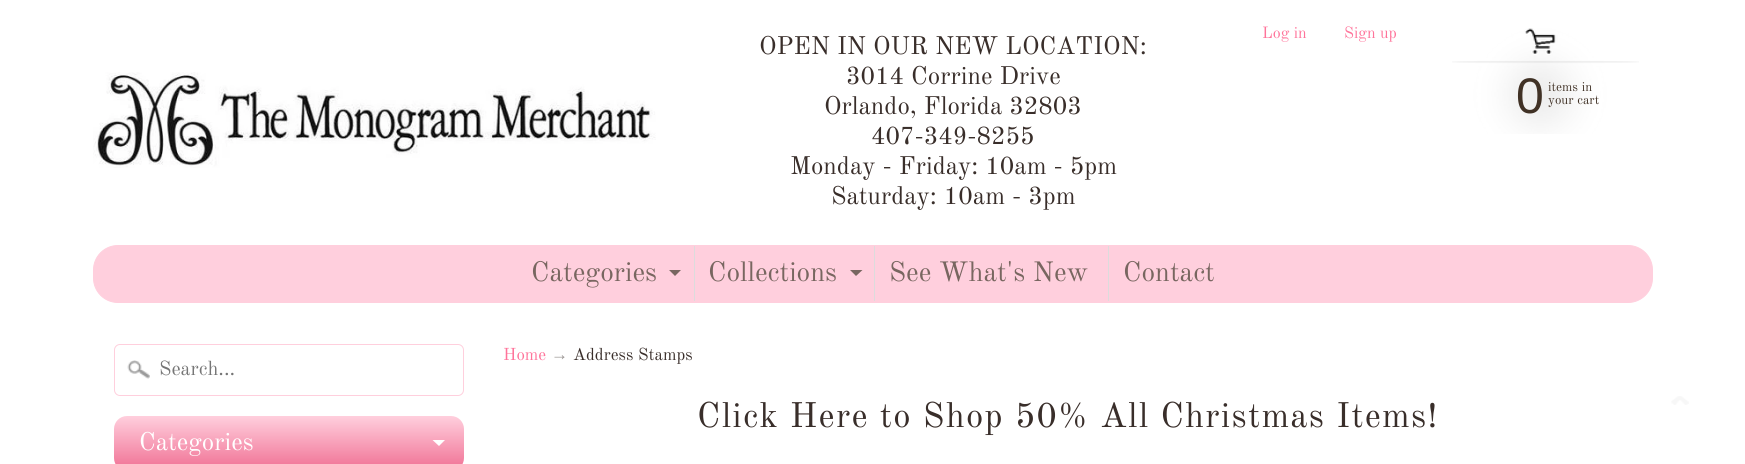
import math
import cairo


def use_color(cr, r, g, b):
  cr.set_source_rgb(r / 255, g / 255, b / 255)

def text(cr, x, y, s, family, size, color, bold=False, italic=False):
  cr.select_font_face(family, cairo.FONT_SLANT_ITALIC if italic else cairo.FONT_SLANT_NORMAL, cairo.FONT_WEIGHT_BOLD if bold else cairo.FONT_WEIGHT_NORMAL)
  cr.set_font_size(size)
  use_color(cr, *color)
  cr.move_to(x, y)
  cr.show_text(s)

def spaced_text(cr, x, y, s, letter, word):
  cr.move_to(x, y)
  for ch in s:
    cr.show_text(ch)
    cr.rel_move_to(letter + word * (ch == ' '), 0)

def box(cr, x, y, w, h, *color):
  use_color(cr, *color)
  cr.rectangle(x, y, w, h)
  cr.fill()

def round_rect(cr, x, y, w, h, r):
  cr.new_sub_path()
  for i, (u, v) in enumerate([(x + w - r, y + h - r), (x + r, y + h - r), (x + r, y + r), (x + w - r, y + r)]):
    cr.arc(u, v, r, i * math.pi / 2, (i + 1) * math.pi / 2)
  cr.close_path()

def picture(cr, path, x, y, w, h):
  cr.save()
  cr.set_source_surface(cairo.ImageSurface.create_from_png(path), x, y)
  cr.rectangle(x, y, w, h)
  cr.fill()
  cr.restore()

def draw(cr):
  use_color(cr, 255, 255, 255)
  cr.paint()
  picture(cr, "img_01.png", 93, 72, 563, 96)
  picture(cr, "img_02.png", 1452, 28, 187, 106)
  use_color(cr, 255, 207, 221)
  round_rect(cr, 93.5, 245.5, 1559, 57, 24.5)
  cr.fill_preserve()
  cr.set_line_width(1)
  cr.stroke()
  use_color(cr, 120, 102, 96)
  cr.new_path()
  cr.move_to(669, 270)
  cr.line_to(681, 270)
  cr.line_to(675, 276)
  cr.close_path()
  cr.fill()
  box(cr, 694, 246, 1, 55, 220, 220, 220)
  use_color(cr, 120, 102, 96)
  cr.new_path()
  cr.move_to(850, 270)
  cr.line_to(862.5, 270)
  cr.line_to(856, 276)
  cr.close_path()
  cr.fill()
  box(cr, 874, 246, 1, 55, 220, 220, 220)
  box(cr, 1108, 246, 1, 55, 220, 220, 220)
  picture(cr, "img_03.png", 127, 360, 23, 19)
  round_rect(cr, 114.5, 344.5, 349, 51, 5.5)
  use_color(cr, 255, 207, 221)
  cr.stroke()
  gradient = cairo.LinearGradient(289, 416, 289, 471)
  gradient.add_color_stop_rgba(0, 1, 0.812, 0.867, 1)
  gradient.add_color_stop_rgba(1, 0.941, 0.435, 0.576, 1)
  cr.set_source(gradient)
  round_rect(cr, 114, 416, 350, 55, 13)
  cr.fill()
  use_color(cr, 255, 255, 255)
  cr.new_path()
  cr.move_to(432.5, 440)
  cr.line_to(445, 440)
  cr.line_to(439, 446)
  cr.close_path()
  cr.fill()
  picture(cr, "img_04.png", 1671, 396, 18, 9)
  text(cr, 759, 54, "OPEN IN OUR NEW LOCATION:", "Old Standard TT", 25, (57, 46, 42))
  text(cr, 846, 84, "3014 Corrine Drive", "Old Standard TT", 25, (57, 46, 42))
  text(cr, 824, 114, "Orlando, Florida 32803", "Old Standard TT", 25, (57, 46, 42))
  text(cr, 871, 144, "407-349-8255", "Old Standard TT", 25, (57, 46, 42))
  text(cr, 790, 174, "Monday - Friday: 10am - 5pm", "Old Standard TT", 25, (57, 46, 42))
  text(cr, 831, 204, "Saturday: 10am - 3pm", "Old Standard TT", 25, (57, 46, 42))
  text(cr, 1262, 38, "Log in", "Old Standard TT", 16, (255, 115, 154))
  text(cr, 1344, 38, "Sign up", "Old Standard TT", 16, (255, 115, 154))
  text(cr, 1516, 113, "0", "Liberation Sans", 50, (64, 49, 37))
  text(cr, 1548, 91, "items in", "Old Standard TT", 13, (64, 49, 37))
  text(cr, 1548, 104, "your cart", "Old Standard TT", 13, (64, 49, 37))
  text(cr, 531, 281, "Categories", "Old Standard TT", 27.5, (120, 102, 96))
  text(cr, 708, 281, "Collections", "Old Standard TT", 27.5, (120, 102, 96))
  text(cr, 889, 281, "See What's New", "Old Standard TT", 27.5, (120, 102, 96))
  text(cr, 1123, 281, "Contact", "Old Standard TT", 27.5, (120, 102, 96))
  text(cr, 159, 375, "Search...", "Old Standard TT", 20, (117, 117, 117))
  text(cr, 139, 450, "Categories", "Old Standard TT", 25, (255, 255, 255))
  text(cr, 503, 360, "Home", "Old Standard TT", 17, (255, 115, 154))
  text(cr, 551, 360, "→", "Liberation Serif", 17, (156, 151, 149))
  text(cr, 573, 360, "Address Stamps", "Old Standard TT", 17, (57, 46, 42))
  cr.set_font_size(34.9)
  spaced_text(cr, 697, 427, "Click Here to Shop 50% All Christmas Items!", 1.25, 0)


surface = cairo.ImageSurface(cairo.FORMAT_RGB24, 1745, 464)
cr = cairo.Context(surface)
options = cairo.FontOptions()
options.set_hint_metrics(cairo.HINT_METRICS_OFF)
options.set_hint_style(cairo.HINT_STYLE_NONE)
cr.set_font_options(options)
cr.set_miter_limit(4)
draw(cr)
surface.write_to_png("out.png")
